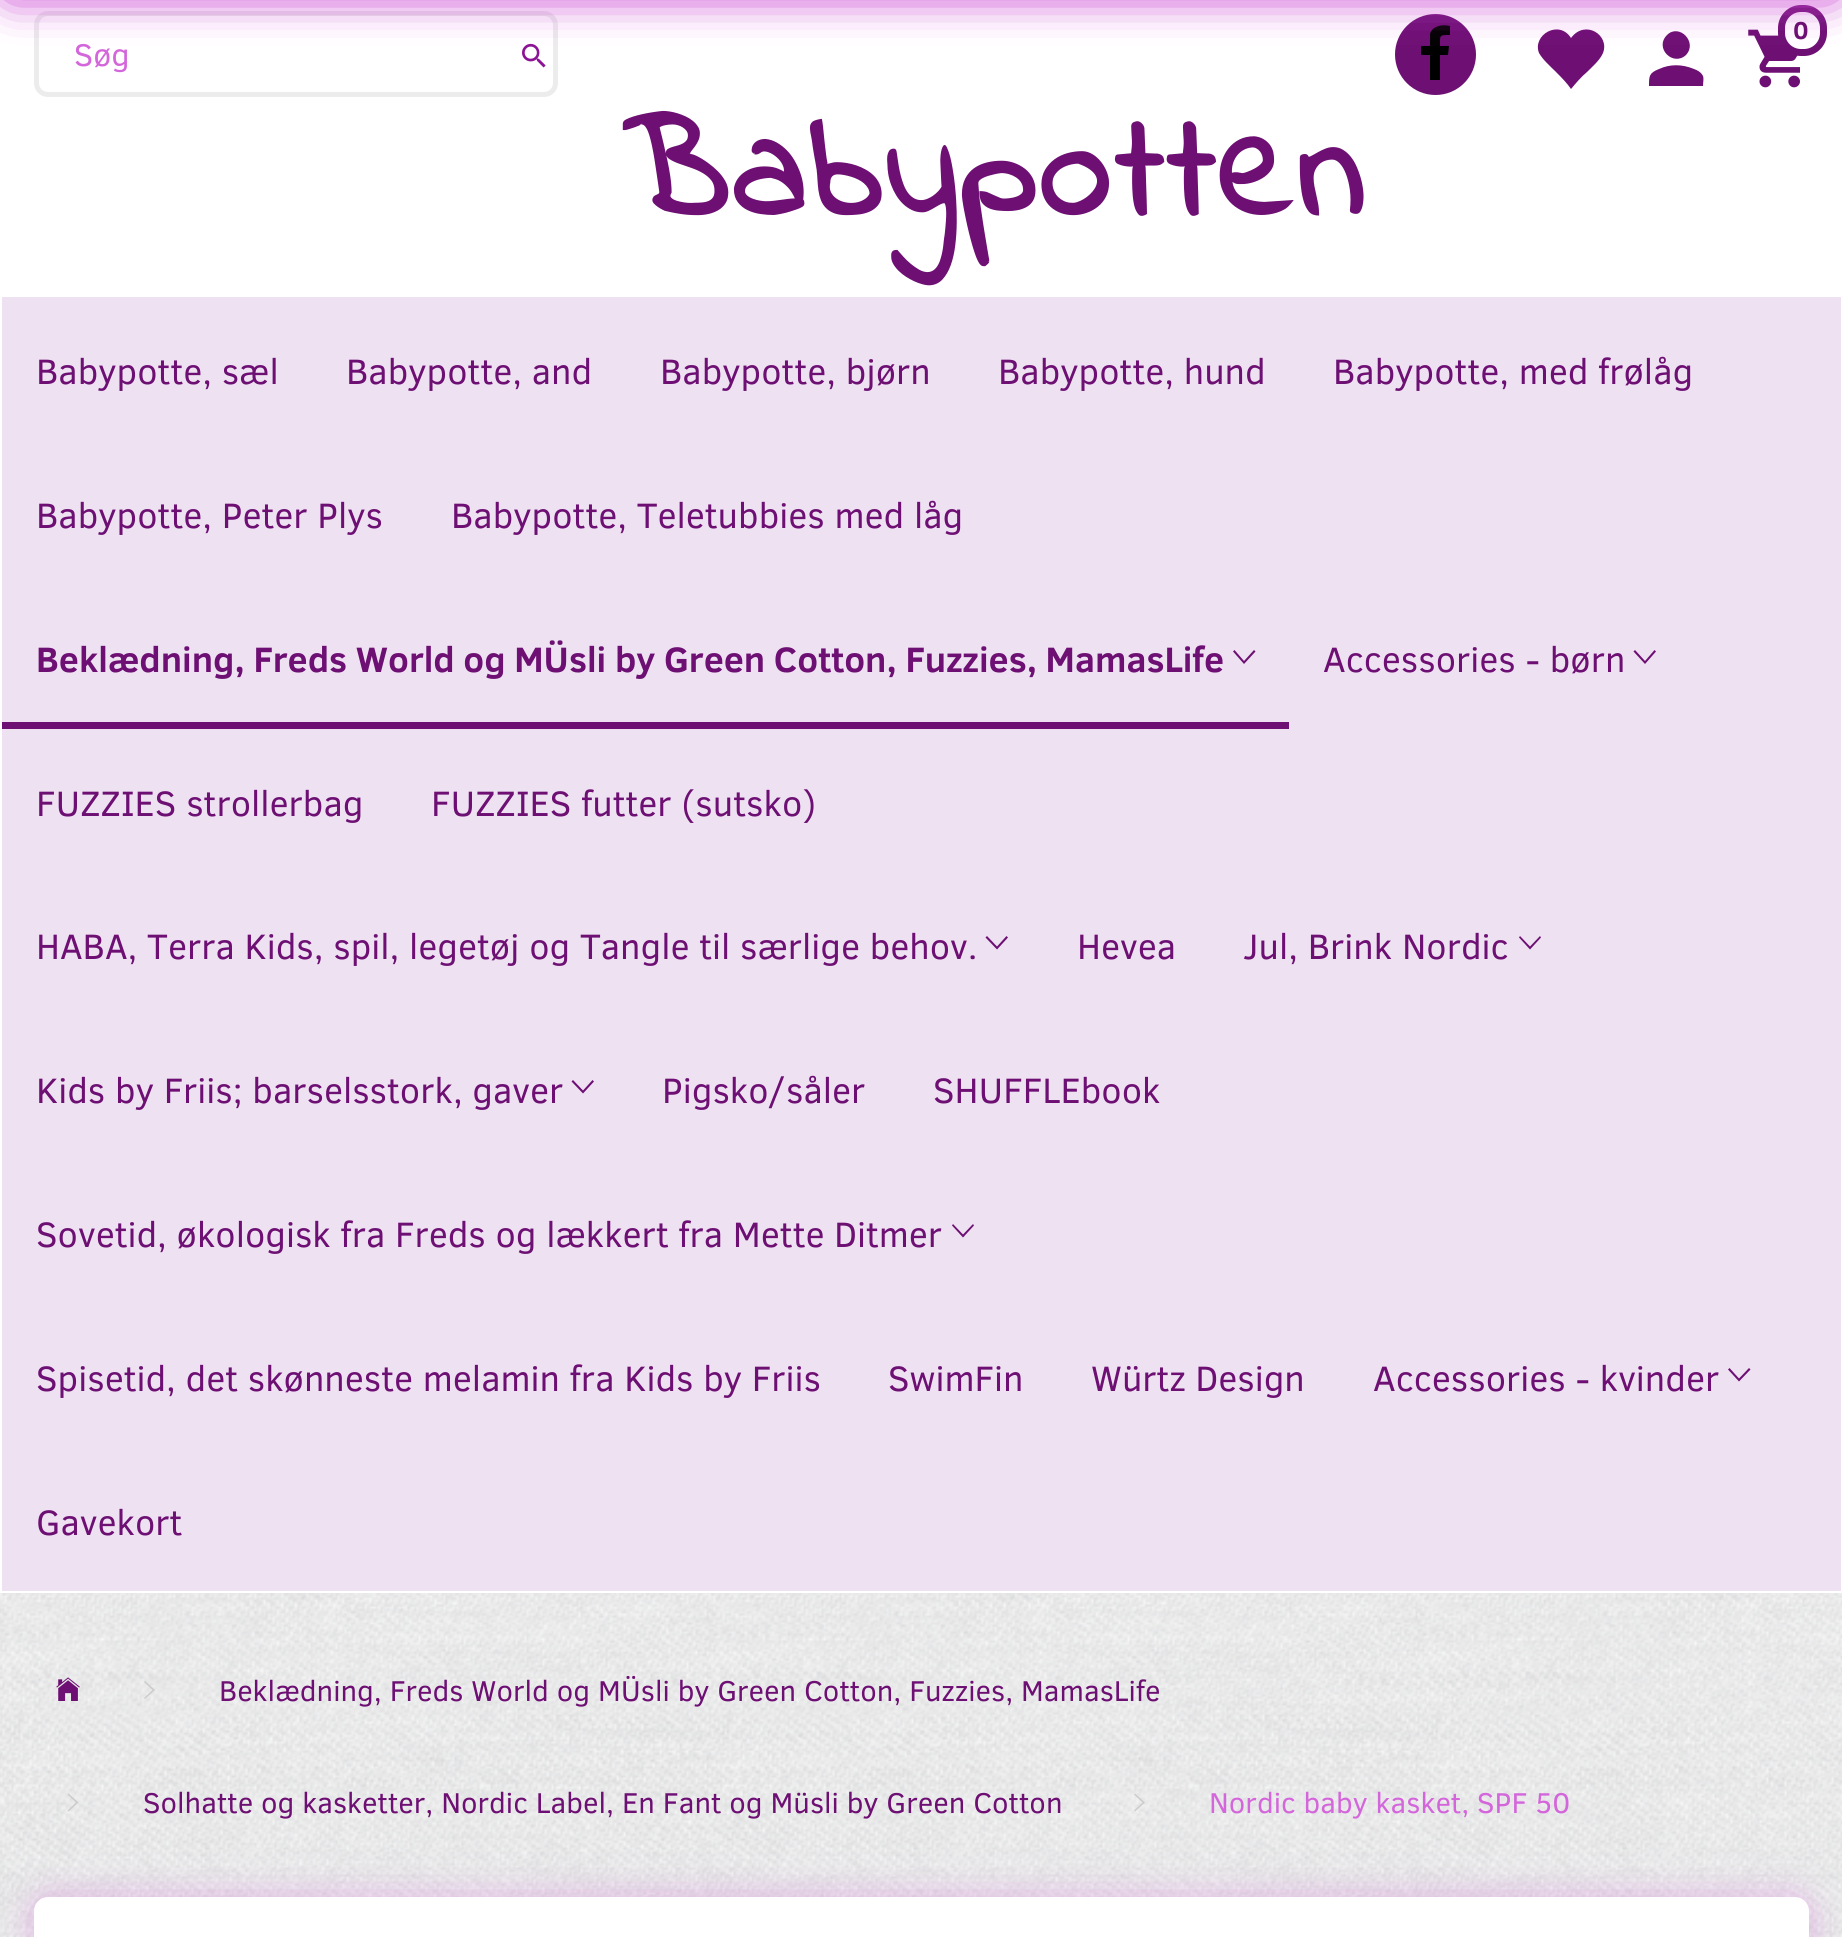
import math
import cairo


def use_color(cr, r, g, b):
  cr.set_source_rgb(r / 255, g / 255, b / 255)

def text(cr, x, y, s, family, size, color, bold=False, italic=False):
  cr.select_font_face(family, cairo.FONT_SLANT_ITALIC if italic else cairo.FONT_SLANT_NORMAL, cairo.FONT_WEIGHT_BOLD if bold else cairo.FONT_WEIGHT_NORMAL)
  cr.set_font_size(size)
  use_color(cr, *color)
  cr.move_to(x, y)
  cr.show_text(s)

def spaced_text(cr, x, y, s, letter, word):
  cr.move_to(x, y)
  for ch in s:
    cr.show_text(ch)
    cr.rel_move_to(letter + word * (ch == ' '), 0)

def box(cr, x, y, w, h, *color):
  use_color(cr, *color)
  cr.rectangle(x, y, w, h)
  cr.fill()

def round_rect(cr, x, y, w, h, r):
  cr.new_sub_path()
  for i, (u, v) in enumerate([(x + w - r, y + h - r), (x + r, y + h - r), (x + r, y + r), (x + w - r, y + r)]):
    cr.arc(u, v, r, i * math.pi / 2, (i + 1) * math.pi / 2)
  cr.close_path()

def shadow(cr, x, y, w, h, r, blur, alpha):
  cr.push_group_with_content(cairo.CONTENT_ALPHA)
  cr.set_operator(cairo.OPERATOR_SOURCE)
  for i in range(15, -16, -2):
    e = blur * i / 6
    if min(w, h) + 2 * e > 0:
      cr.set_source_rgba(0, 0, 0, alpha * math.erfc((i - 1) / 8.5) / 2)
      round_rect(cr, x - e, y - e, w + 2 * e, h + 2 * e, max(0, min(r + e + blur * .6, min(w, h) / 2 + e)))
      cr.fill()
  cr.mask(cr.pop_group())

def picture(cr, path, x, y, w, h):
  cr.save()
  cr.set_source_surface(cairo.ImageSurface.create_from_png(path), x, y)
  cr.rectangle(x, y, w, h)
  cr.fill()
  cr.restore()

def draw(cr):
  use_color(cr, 255, 255, 255)
  cr.paint()
  picture(cr, "img_01.png", 0, 1593, 1842, 344)
  round_rect(cr, 36.5, 13.5, 519, 81, 11.5)
  use_color(cr, 236, 236, 236)
  cr.set_line_width(5)
  cr.stroke()
  picture(cr, "img_02.png", 522, 43, 24, 25)
  use_color(cr, 109, 15, 115)
  cr.arc(1435.5, 54.5, 40.5, 0, 2 * math.pi)
  cr.fill()
  use_color(cr, 0, 0, 0)
  cr.new_path()
  cr.move_to(1440, 80)
  cr.line_to(1440, 55)
  cr.line_to(1448, 55)
  cr.line_to(1449, 46)
  cr.line_to(1440, 46)
  cr.curve_to(1440, 35, 1439, 35, 1450, 35)
  cr.line_to(1450, 26)
  cr.curve_to(1442, 24, 1432, 26, 1430, 34)
  cr.line_to(1430, 46)
  cr.line_to(1421, 46)
  cr.line_to(1421, 55)
  cr.line_to(1430, 55)
  cr.line_to(1430, 80)
  cr.close_path()
  cr.fill()
  use_color(cr, 109, 15, 115)
  cr.new_path()
  cr.move_to(1571, 38)
  cr.curve_to(1585, 19, 1610, 35, 1603, 53)
  cr.curve_to(1600, 60, 1593, 66, 1587, 72)
  cr.curve_to(1581, 77, 1576, 83, 1571, 89)
  cr.curve_to(1567, 83, 1561, 77, 1556, 72)
  cr.curve_to(1550, 66, 1543, 60, 1539, 53)
  cr.curve_to(1532, 35, 1559, 19, 1571, 38)
  cr.close_path()
  cr.fill()
  cr.new_path()
  cr.move_to(1686, 55)
  cr.curve_to(1673, 67, 1654, 48, 1667, 35)
  cr.curve_to(1679, 23, 1698, 42, 1686, 55)
  cr.close_path()
  cr.move_to(1659, 69)
  cr.curve_to(1670, 64, 1682, 64, 1694, 69)
  cr.curve_to(1697, 70, 1701, 72, 1703, 76)
  cr.curve_to(1704, 79, 1703, 82, 1703, 86)
  cr.line_to(1649, 86)
  cr.curve_to(1649, 76, 1649, 73, 1659, 69)
  cr.close_path()
  cr.fill()
  picture(cr, "img_03.png", 1748, 29, 52, 59)
  use_color(cr, 255, 255, 255)
  round_rect(cr, 1781.5, 8.5, 42, 44, 19.5)
  cr.fill_preserve()
  use_color(cr, 109, 15, 115)
  cr.set_line_width(7)
  cr.stroke()
  use_color(cr, 203, 71, 212)
  shadow(cr, 11, -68, 1821, 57, 0, 22.5, 1)
  shadow(cr, 11, -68, 1821, 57, 0, 22.5, 1)
  box(cr, 2, 297, 1839, 1294, 238, 226, 242)
  box(cr, 2, 722, 1287, 7, 109, 15, 115)
  cr.new_path()
  cr.move_to(1254, 650)
  cr.line_to(1255.5, 651.5)
  cr.line_to(1244, 664)
  cr.line_to(1233, 651.5)
  cr.line_to(1234.5, 650)
  cr.line_to(1244, 661)
  cr.close_path()
  cr.fill()
  cr.new_path()
  cr.move_to(1654.5, 650)
  cr.line_to(1656, 651.5)
  cr.line_to(1645, 664)
  cr.line_to(1633.5, 651.5)
  cr.line_to(1635, 650)
  cr.line_to(1645, 661)
  cr.close_path()
  cr.fill()
  cr.new_path()
  cr.move_to(1006.5, 936)
  cr.line_to(1008, 937.5)
  cr.line_to(997, 949.5)
  cr.line_to(985.5, 937.5)
  cr.line_to(987, 936)
  cr.line_to(997, 946.5)
  cr.close_path()
  cr.fill()
  cr.new_path()
  cr.move_to(1540, 936)
  cr.line_to(1541, 937.5)
  cr.line_to(1530, 949.5)
  cr.line_to(1519, 937.5)
  cr.line_to(1520, 936)
  cr.line_to(1530, 946.5)
  cr.close_path()
  cr.fill()
  cr.new_path()
  cr.move_to(592.5, 1080)
  cr.line_to(594, 1081.5)
  cr.line_to(583, 1093.5)
  cr.line_to(571.5, 1081.5)
  cr.line_to(573, 1080)
  cr.line_to(583, 1090.5)
  cr.close_path()
  cr.fill()
  cr.new_path()
  cr.move_to(973, 1224)
  cr.line_to(974, 1225.5)
  cr.line_to(963, 1237.5)
  cr.line_to(952, 1225.5)
  cr.line_to(953, 1224)
  cr.line_to(963, 1234.5)
  cr.close_path()
  cr.fill()
  cr.new_path()
  cr.move_to(1749, 1368)
  cr.line_to(1750.5, 1369.5)
  cr.line_to(1739, 1381.5)
  cr.line_to(1728, 1369.5)
  cr.line_to(1729.5, 1368)
  cr.line_to(1739, 1378.5)
  cr.close_path()
  cr.fill()
  picture(cr, "img_04.png", 56, 1677, 24, 24)
  use_color(cr, 204, 204, 204)
  cr.new_path()
  cr.move_to(144, 1682)
  cr.line_to(145, 1681)
  cr.line_to(155, 1690)
  cr.line_to(145, 1699)
  cr.line_to(144, 1698)
  cr.line_to(152.5, 1690)
  cr.close_path()
  cr.fill()
  cr.new_path()
  cr.move_to(67.5, 1794.5)
  cr.line_to(68.5, 1793.5)
  cr.line_to(78.5, 1802.5)
  cr.line_to(68.5, 1811.5)
  cr.line_to(67.5, 1810.5)
  cr.line_to(76, 1802.5)
  cr.close_path()
  cr.fill()
  cr.new_path()
  cr.move_to(1134, 1794.5)
  cr.line_to(1135, 1793.5)
  cr.line_to(1145, 1802.5)
  cr.line_to(1135, 1811.5)
  cr.line_to(1134, 1810.5)
  cr.line_to(1142.5, 1802.5)
  cr.close_path()
  cr.fill()
  use_color(cr, 216, 139, 221)
  shadow(cr, 45, 1908, 1753, 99, 2, 22.5, 1)
  use_color(cr, 255, 255, 255)
  round_rect(cr, 34, 1897, 1775, 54, 14)
  cr.fill()
  text(cr, 74, 66, "Søg", "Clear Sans", 32, (212, 102, 219))
  text(cr, 1793, 39, "0", "Clear Sans", 25, (109, 15, 115), bold=True)
  cr.select_font_face("Indie Flower", cairo.FONT_SLANT_NORMAL, cairo.FONT_WEIGHT_BOLD)
  cr.set_font_size(144)
  spaced_text(cr, 620, 215, "Babypotten", 4.5, 0)
  text(cr, 36, 384, "Babypotte, sæl", "Clear Sans", 36, (109, 15, 115))
  text(cr, 346, 384, "Babypotte, and", "Clear Sans", 36, (109, 15, 115))
  text(cr, 660, 384, "Babypotte, bjørn", "Clear Sans", 36, (109, 15, 115))
  text(cr, 998, 384, "Babypotte, hund", "Clear Sans", 36, (109, 15, 115))
  text(cr, 1333, 384, "Babypotte, med frølåg", "Clear Sans", 36, (109, 15, 115))
  text(cr, 36, 528, "Babypotte, Peter Plys", "Clear Sans", 36, (109, 15, 115))
  text(cr, 451, 528, "Babypotte, Teletubbies med låg", "Clear Sans", 36, (109, 15, 115))
  text(cr, 36, 672, "Beklædning, Freds World og MÜsli by Green Cotton, Fuzzies, MamasLife", "Clear Sans", 36, (109, 15, 115), bold=True)
  text(cr, 1323, 672, "Accessories - børn", "Clear Sans", 36, (109, 15, 115))
  text(cr, 36, 816, "FUZZIES strollerbag", "Clear Sans", 36, (109, 15, 115))
  text(cr, 431, 816, "FUZZIES futter (sutsko)", "Clear Sans", 36, (109, 15, 115))
  text(cr, 36, 959, "HABA, Terra Kids, spil, legetøj og Tangle til særlige behov.", "Clear Sans", 36, (109, 15, 115))
  text(cr, 1077, 959, "Hevea", "Clear Sans", 36, (109, 15, 115))
  text(cr, 1243, 959, "Jul, Brink Nordic", "Clear Sans", 36, (109, 15, 115))
  text(cr, 36, 1103, "Kids by Friis; barselsstork, gaver", "Clear Sans", 36, (109, 15, 115))
  text(cr, 662, 1103, "Pigsko/såler", "Clear Sans", 36, (109, 15, 115))
  text(cr, 933, 1103, "SHUFFLEbook", "Clear Sans", 36, (109, 15, 115))
  text(cr, 36, 1247, "Sovetid, økologisk fra Freds og lækkert fra Mette Ditmer", "Clear Sans", 36, (109, 15, 115))
  text(cr, 36, 1391, "Spisetid, det skønneste melamin fra Kids by Friis", "Clear Sans", 36, (109, 15, 115))
  text(cr, 888, 1391, "SwimFin", "Clear Sans", 36, (109, 15, 115))
  text(cr, 1091, 1391, "Würtz Design", "Clear Sans", 36, (109, 15, 115))
  text(cr, 1373, 1391, "Accessories - kvinder", "Clear Sans", 36, (109, 15, 115))
  text(cr, 36, 1535, "Gavekort", "Clear Sans", 36, (109, 15, 115))
  text(cr, 219, 1701, "Beklædning, Freds World og MÜsli by Green Cotton, Fuzzies, MamasLife", "Clear Sans", 29.25, (109, 15, 115))
  text(cr, 143, 1813, "Solhatte og kasketter, Nordic Label, En Fant og Müsli by Green Cotton", "Clear Sans", 29.25, (109, 15, 115))
  text(cr, 1209, 1813, "Nordic baby kasket, SPF 50", "Clear Sans", 29.25, (212, 102, 219))


surface = cairo.ImageSurface(cairo.FORMAT_RGB24, 1842, 1937)
cr = cairo.Context(surface)
options = cairo.FontOptions()
options.set_hint_metrics(cairo.HINT_METRICS_OFF)
options.set_hint_style(cairo.HINT_STYLE_NONE)
cr.set_font_options(options)
cr.set_miter_limit(4)
draw(cr)
surface.write_to_png("out.png")
